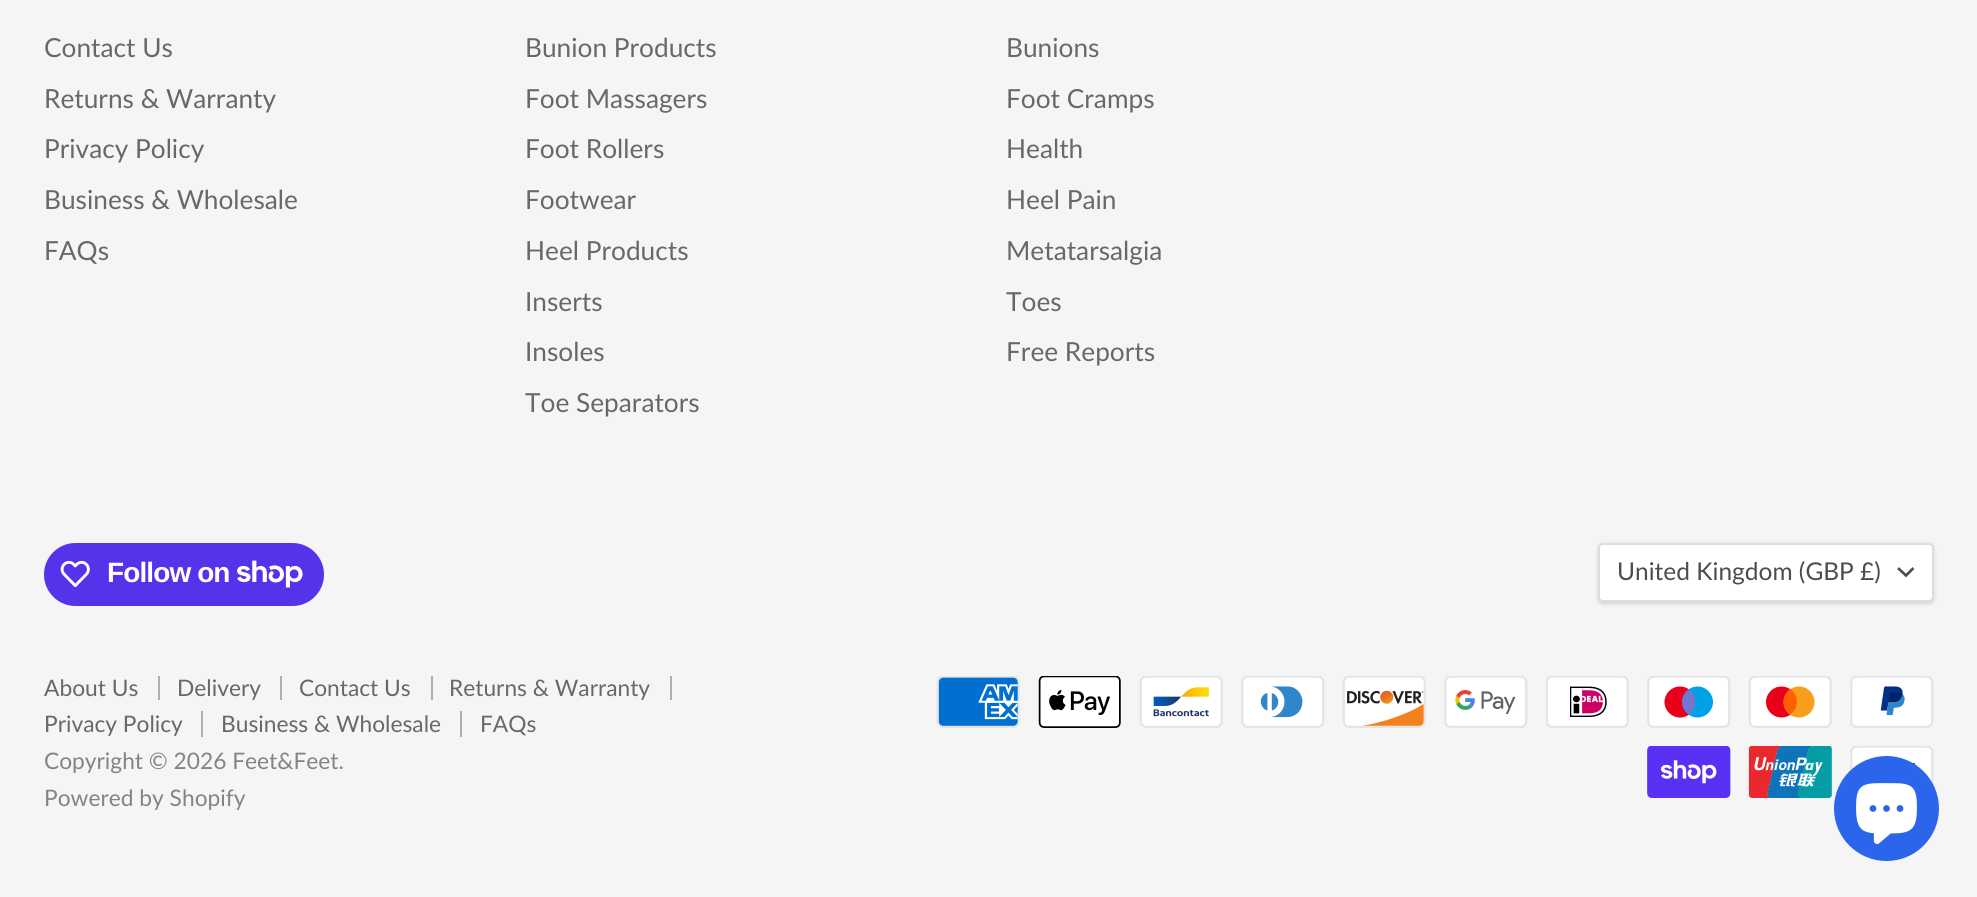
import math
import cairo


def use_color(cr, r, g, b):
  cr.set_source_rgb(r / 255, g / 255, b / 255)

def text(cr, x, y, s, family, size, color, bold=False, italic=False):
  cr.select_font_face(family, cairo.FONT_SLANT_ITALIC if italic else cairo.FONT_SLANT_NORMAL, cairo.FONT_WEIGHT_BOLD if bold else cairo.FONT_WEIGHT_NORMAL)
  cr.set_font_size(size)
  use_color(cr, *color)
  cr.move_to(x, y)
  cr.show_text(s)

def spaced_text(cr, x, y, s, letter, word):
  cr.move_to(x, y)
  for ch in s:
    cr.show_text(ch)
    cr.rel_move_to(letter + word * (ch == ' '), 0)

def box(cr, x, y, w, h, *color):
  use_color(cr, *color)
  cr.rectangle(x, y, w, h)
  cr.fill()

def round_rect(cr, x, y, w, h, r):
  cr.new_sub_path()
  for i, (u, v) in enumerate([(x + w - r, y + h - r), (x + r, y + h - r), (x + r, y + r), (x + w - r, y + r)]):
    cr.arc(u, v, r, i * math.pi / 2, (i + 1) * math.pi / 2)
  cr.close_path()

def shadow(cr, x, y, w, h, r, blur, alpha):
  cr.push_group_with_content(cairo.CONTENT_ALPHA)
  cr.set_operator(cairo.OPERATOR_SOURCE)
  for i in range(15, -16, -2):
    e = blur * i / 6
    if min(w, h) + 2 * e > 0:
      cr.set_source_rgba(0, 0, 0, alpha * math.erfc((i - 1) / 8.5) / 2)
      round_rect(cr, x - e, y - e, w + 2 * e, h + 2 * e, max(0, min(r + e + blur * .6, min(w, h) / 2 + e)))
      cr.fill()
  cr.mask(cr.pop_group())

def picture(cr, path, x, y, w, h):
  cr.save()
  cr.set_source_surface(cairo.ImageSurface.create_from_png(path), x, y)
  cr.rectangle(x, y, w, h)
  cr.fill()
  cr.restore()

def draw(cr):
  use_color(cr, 245, 245, 245)
  cr.paint()
  use_color(cr, 84, 51, 235)
  round_rect(cr, 44, 543, 280, 63, 31.5)
  cr.fill()
  picture(cr, "img_01.png", 60, 560, 30, 28)
  picture(cr, "img_02.png", 237, 560, 66, 28)
  use_color(cr, 0, 0, 0)
  shadow(cr, 1598, 544, 336, 60, 5, 2, 0.15)
  use_color(cr, 255, 255, 255)
  round_rect(cr, 1599, 544, 334, 57, 4)
  cr.fill_preserve()
  use_color(cr, 221, 221, 221)
  cr.stroke()
  cr.new_path()
  cr.move_to(1906, 575.5)
  cr.line_to(1912.5, 569)
  cr.move_to(1906, 575.5)
  cr.line_to(1899, 569)
  use_color(cr, 77, 77, 77)
  cr.set_line_width(2.7)
  cr.set_line_cap(cairo.LINE_CAP_SQUARE)
  cr.stroke()
  box(cr, 158, 676, 2, 24, 175, 175, 175)
  box(cr, 280, 676, 2, 24, 175, 175, 175)
  box(cr, 431, 676, 2, 24, 175, 175, 175)
  box(cr, 670, 676, 2, 24, 175, 175, 175)
  box(cr, 201, 711, 2, 26, 175, 175, 175)
  box(cr, 460, 711, 2, 26, 175, 175, 175)
  picture(cr, "img_03.png", 936, 676, 84, 52)
  picture(cr, "img_04.png", 1038, 676, 83, 52)
  picture(cr, "img_05.png", 1139, 676, 84, 52)
  picture(cr, "img_06.png", 1241, 676, 84, 52)
  picture(cr, "img_07.png", 1342, 676, 84, 52)
  picture(cr, "img_08.png", 1444, 676, 84, 52)
  picture(cr, "img_09.png", 1546, 676, 83, 52)
  picture(cr, "img_10.png", 1647, 676, 84, 52)
  picture(cr, "img_11.png", 1748, 676, 84, 52)
  picture(cr, "img_12.png", 1850, 676, 84, 52)
  picture(cr, "img_13.png", 1647, 746, 84, 52)
  picture(cr, "img_14.png", 1748, 746, 84, 52)
  picture(cr, "img_15.png", 1850, 746, 84, 41)
  use_color(cr, 43, 101, 236)
  cr.arc(1886.5, 808.5, 52.5, 0, 2 * math.pi)
  cr.fill()
  picture(cr, "img_16.png", 1856, 783, 61, 61)
  text(cr, 44, 57, "Contact Us", "Lato", 26.25, (104, 104, 104))
  text(cr, 44, 108, "Returns & Warranty", "Lato", 26.25, (104, 104, 104))
  text(cr, 44, 158, "Privacy Policy", "Lato", 26.25, (104, 104, 104))
  text(cr, 44, 209, "Business & Wholesale", "Lato", 26.25, (104, 104, 104))
  text(cr, 44, 260, "FAQs", "Lato", 26.25, (104, 104, 104))
  text(cr, 525, 57, "Bunion Products", "Lato", 26.25, (104, 104, 104))
  text(cr, 525, 108, "Foot Massagers", "Lato", 26.25, (104, 104, 104))
  text(cr, 525, 158, "Foot Rollers", "Lato", 26.25, (104, 104, 104))
  text(cr, 525, 209, "Footwear", "Lato", 26.25, (104, 104, 104))
  text(cr, 525, 260, "Heel Products", "Lato", 26.25, (104, 104, 104))
  text(cr, 525, 311, "Inserts", "Lato", 26.25, (104, 104, 104))
  text(cr, 525, 361, "Insoles", "Lato", 26.25, (104, 104, 104))
  text(cr, 525, 412, "Toe Separators", "Lato", 26.25, (104, 104, 104))
  text(cr, 1006, 57, "Bunions", "Lato", 26.25, (104, 104, 104))
  text(cr, 1006, 108, "Foot Cramps", "Lato", 26.25, (104, 104, 104))
  text(cr, 1006, 158, "Health", "Lato", 26.25, (104, 104, 104))
  text(cr, 1006, 209, "Heel Pain", "Lato", 26.25, (104, 104, 104))
  text(cr, 1006, 260, "Metatarsalgia", "Lato", 26.25, (104, 104, 104))
  text(cr, 1006, 311, "Toes", "Lato", 26.25, (104, 104, 104))
  text(cr, 1006, 361, "Free Reports", "Lato", 26.25, (104, 104, 104))
  cr.select_font_face("Liberation Sans", cairo.FONT_SLANT_NORMAL, cairo.FONT_WEIGHT_BOLD)
  cr.set_font_size(28)
  use_color(cr, 255, 255, 255)
  spaced_text(cr, 107, 582, "Follow on", -0.9, 0)
  text(cr, 1617, 580, "United Kingdom (GBP £)", "Lato", 24.5, (77, 77, 77))
  text(cr, 44, 696, "About Us", "Lato", 22.75, (104, 104, 104))
  text(cr, 177, 696, "Delivery", "Lato", 22.75, (104, 104, 104))
  text(cr, 299, 696, "Contact Us", "Lato", 22.75, (104, 104, 104))
  text(cr, 449, 696, "Returns & Warranty", "Lato", 22.75, (104, 104, 104))
  text(cr, 44, 732, "Privacy Policy", "Lato", 22.75, (104, 104, 104))
  text(cr, 221, 732, "Business & Wholesale", "Lato", 22.75, (104, 104, 104))
  text(cr, 480, 732, "FAQs", "Lato", 22.75, (104, 104, 104))
  text(cr, 44, 769, "Copyright © 2026 Feet&Feet.", "Lato", 22.75, (132, 132, 132))
  text(cr, 44, 806, "Powered by Shopify", "Lato", 22.75, (132, 132, 132))


surface = cairo.ImageSurface(cairo.FORMAT_RGB24, 1977, 897)
cr = cairo.Context(surface)
options = cairo.FontOptions()
options.set_hint_metrics(cairo.HINT_METRICS_OFF)
options.set_hint_style(cairo.HINT_STYLE_NONE)
cr.set_font_options(options)
cr.set_miter_limit(4)
draw(cr)
surface.write_to_png("out.png")
